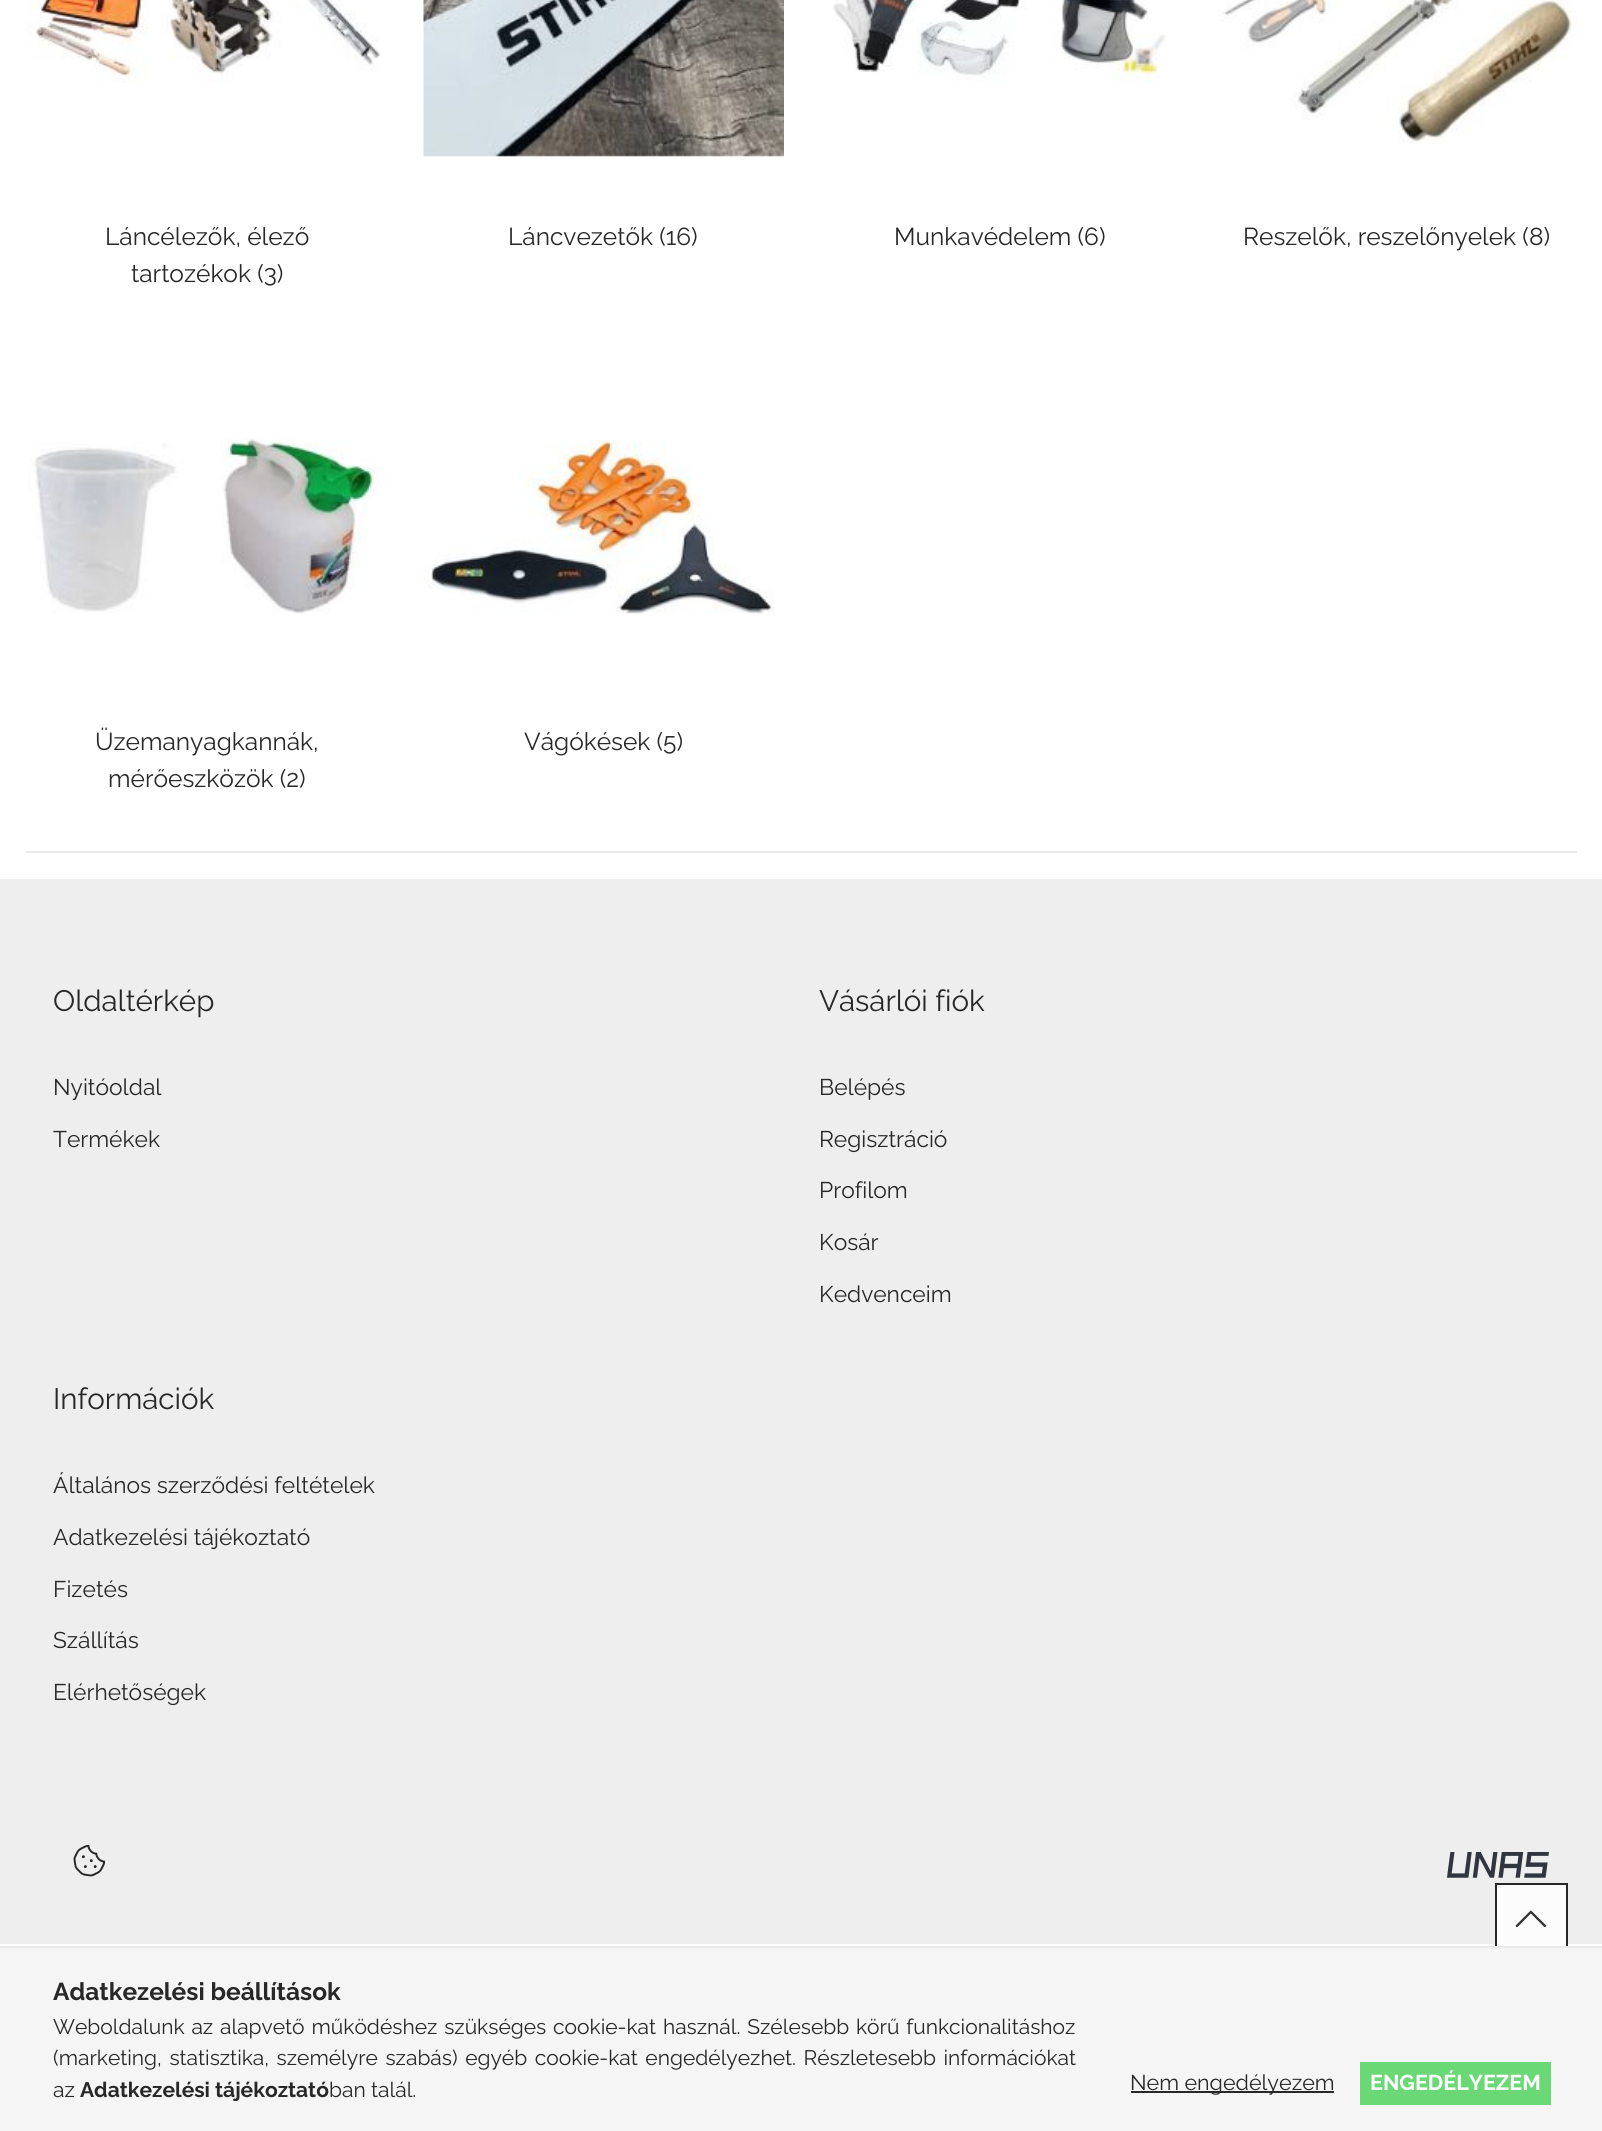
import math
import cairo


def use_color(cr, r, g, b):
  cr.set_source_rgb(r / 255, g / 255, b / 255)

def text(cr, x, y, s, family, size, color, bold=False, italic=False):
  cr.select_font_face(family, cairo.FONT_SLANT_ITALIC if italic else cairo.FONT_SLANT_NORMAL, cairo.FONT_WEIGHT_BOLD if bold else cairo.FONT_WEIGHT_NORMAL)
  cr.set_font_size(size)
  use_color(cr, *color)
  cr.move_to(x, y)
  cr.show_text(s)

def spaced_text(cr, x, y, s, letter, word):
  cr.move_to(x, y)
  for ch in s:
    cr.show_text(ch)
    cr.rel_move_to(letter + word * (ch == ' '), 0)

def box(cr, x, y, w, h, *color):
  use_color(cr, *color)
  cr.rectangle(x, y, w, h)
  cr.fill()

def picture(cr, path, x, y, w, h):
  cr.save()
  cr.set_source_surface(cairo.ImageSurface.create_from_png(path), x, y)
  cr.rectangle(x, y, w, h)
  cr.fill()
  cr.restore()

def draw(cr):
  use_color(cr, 255, 255, 255)
  cr.paint()
  box(cr, 26, 851, 1551, 2, 234, 234, 234)
  picture(cr, "img_01.png", 26, 0, 354, 83)
  picture(cr, "img_02.png", 423, 0, 361, 157)
  picture(cr, "img_03.png", 833, 0, 333, 83)
  picture(cr, "img_04.png", 1217, 0, 360, 144)
  picture(cr, "img_05.png", 28, 438, 357, 176)
  picture(cr, "img_06.png", 423, 440, 352, 175)
  box(cr, 0, 879, 1602, 1065, 238, 238, 238)
  box(cr, 1497, 1885, 69, 59, 252, 252, 252)
  picture(cr, "img_07.png", 73, 1844, 33, 33)
  picture(cr, "img_08.png", 1447, 1852, 102, 26)
  cr.rectangle(1496, 1884, 71, 72)
  use_color(cr, 40, 40, 40)
  cr.stroke()
  picture(cr, "img_09.png", 1515, 1910, 32, 18)
  box(cr, 0, 1948, 1602, 183, 245, 245, 245)
  box(cr, 0, 1946, 1602, 2, 234, 234, 234)
  box(cr, 1131, 2091, 203, 2, 40, 40, 40)
  box(cr, 1360, 2062, 191, 43, 107, 216, 118)
  text(cr, 105, 245, "Láncélezők, élező", "Raleway", 24.5, (40, 40, 40))
  text(cr, 131, 282, "tartozékok (3)", "Raleway", 24.5, (40, 40, 40))
  text(cr, 508, 245, "Láncvezetők (16)", "Raleway", 24.5, (40, 40, 40))
  text(cr, 894, 245, "Munkavédelem (6)", "Raleway", 24.5, (40, 40, 40))
  text(cr, 1243, 245, "Reszelők, reszelőnyelek (8)", "Raleway", 24.5, (40, 40, 40))
  text(cr, 95, 750, "Üzemanyagkannák,", "Raleway", 24.5, (40, 40, 40))
  text(cr, 108, 787, "mérőeszközök (2)", "Raleway", 24.5, (40, 40, 40))
  text(cr, 524, 750, "Vágókések (5)", "Raleway", 24.5, (40, 40, 40))
  text(cr, 53, 1011, "Oldaltérkép", "Raleway", 29.5, (40, 40, 40))
  text(cr, 53, 1095, "Nyitóoldal", "Raleway", 22.75, (40, 40, 40))
  text(cr, 53, 1147, "Termékek", "Raleway", 22.75, (40, 40, 40))
  text(cr, 819, 1011, "Vásárlói fiók", "Raleway", 29.5, (40, 40, 40))
  text(cr, 819, 1095, "Belépés", "Raleway", 22.75, (40, 40, 40))
  text(cr, 819, 1147, "Regisztráció", "Raleway", 22.75, (40, 40, 40))
  text(cr, 819, 1198, "Profilom", "Raleway", 22.75, (40, 40, 40))
  text(cr, 819, 1250, "Kosár", "Raleway", 22.75, (40, 40, 40))
  text(cr, 819, 1302, "Kedvenceim", "Raleway", 22.75, (40, 40, 40))
  text(cr, 53, 1409, "Információk", "Raleway", 29.5, (40, 40, 40))
  text(cr, 53, 1493, "Általános szerződési feltételek", "Raleway", 22.75, (40, 40, 40))
  text(cr, 53, 1545, "Adatkezelési tájékoztató", "Raleway", 22.75, (40, 40, 40))
  text(cr, 53, 1597, "Fizetés", "Raleway", 22.75, (40, 40, 40))
  text(cr, 53, 1648, "Szállítás", "Raleway", 22.75, (40, 40, 40))
  text(cr, 53, 1700, "Elérhetőségek", "Raleway", 22.75, (40, 40, 40))
  text(cr, 53, 2000, "Adatkezelési beállítások", "Raleway", 24.5, (40, 40, 40), bold=True)
  cr.select_font_face("Raleway")
  cr.set_font_size(21)
  spaced_text(cr, 53, 2034, "Weboldalunk az alapvető működéshez szükséges cookie-kat használ. Szélesebb körű funkcionalitáshoz", 0, 1.5)
  spaced_text(cr, 53, 2065, "(marketing, statisztika, személyre szabás) egyéb cookie-kat engedélyezhet. Részletesebb információkat", 0, 2.25)
  text(cr, 53, 2097, "az", "Raleway", 21, (40, 40, 40))
  text(cr, 80, 2097, "Adatkezelési tájékoztató", "Raleway", 21, (40, 40, 40), bold=True)
  text(cr, 329, 2097, "ban talál.", "Raleway", 21, (40, 40, 40))
  text(cr, 1130, 2090, "Nem engedélyezem", "Raleway", 21.5, (40, 40, 40))
  text(cr, 1370, 2090, "ENGEDÉLYEZEM", "Raleway", 21.5, (255, 255, 255), bold=True)


surface = cairo.ImageSurface(cairo.FORMAT_RGB24, 1602, 2131)
cr = cairo.Context(surface)
options = cairo.FontOptions()
options.set_hint_metrics(cairo.HINT_METRICS_OFF)
options.set_hint_style(cairo.HINT_STYLE_NONE)
cr.set_font_options(options)
cr.set_miter_limit(4)
draw(cr)
surface.write_to_png("out.png")
